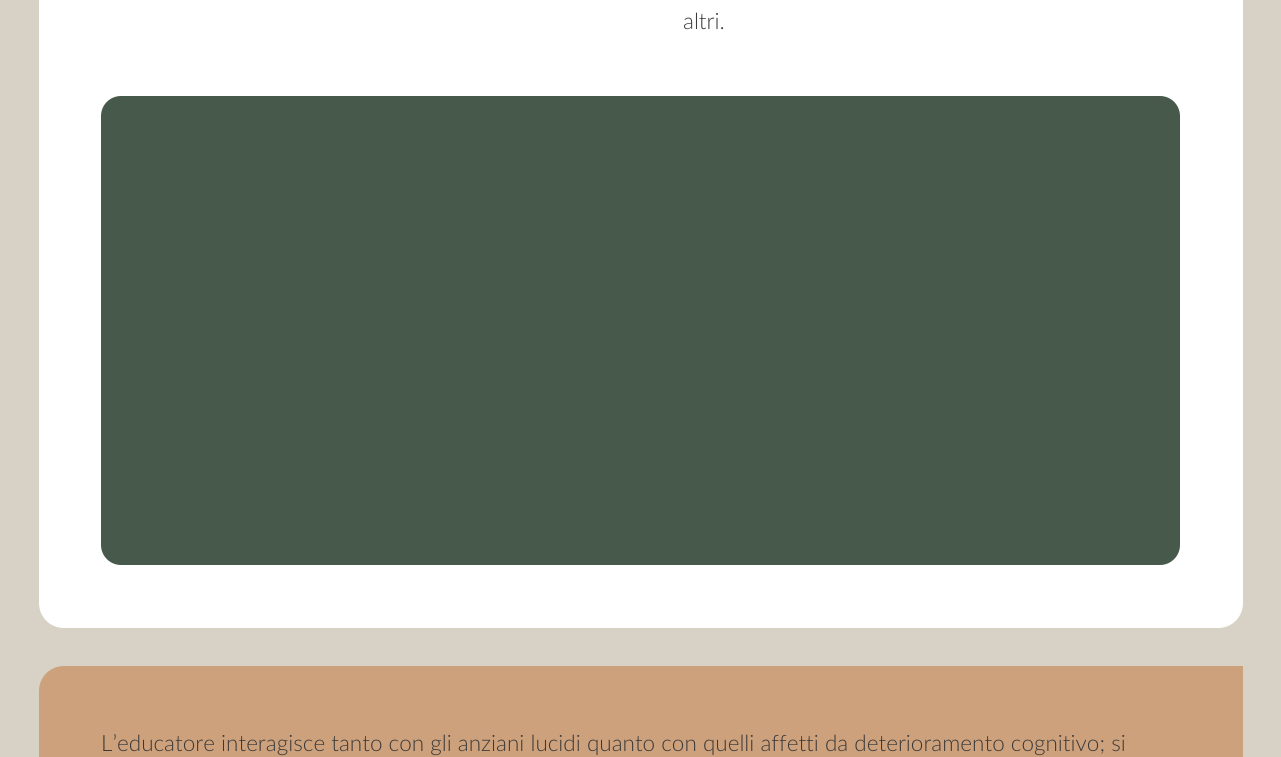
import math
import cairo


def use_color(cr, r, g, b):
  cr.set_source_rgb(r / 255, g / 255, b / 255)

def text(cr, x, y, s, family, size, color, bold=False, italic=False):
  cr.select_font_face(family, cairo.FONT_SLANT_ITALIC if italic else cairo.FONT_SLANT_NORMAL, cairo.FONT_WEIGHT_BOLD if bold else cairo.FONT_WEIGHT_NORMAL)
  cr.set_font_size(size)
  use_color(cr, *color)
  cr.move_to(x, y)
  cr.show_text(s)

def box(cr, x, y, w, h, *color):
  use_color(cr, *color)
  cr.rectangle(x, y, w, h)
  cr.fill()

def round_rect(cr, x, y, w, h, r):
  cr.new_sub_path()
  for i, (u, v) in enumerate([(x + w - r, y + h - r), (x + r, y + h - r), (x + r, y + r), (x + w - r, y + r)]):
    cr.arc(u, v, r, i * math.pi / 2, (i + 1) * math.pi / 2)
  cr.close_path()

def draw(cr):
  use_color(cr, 216, 210, 198)
  cr.paint()
  box(cr, 39, 0, 1204, 34, 255, 255, 255)
  cr.new_path()
  cr.move_to(39, 34)
  cr.line_to(1243, 34)
  cr.line_to(1243, 603)
  cr.curve_to(1243, 617, 1232, 628, 1218, 628)
  cr.line_to(64, 628)
  cr.curve_to(50, 628, 39, 617, 39, 603)
  cr.close_path()
  cr.fill()
  use_color(cr, 71, 89, 75)
  round_rect(cr, 101, 96, 1079, 469, 20)
  cr.fill()
  use_color(cr, 205, 161, 124)
  cr.new_path()
  cr.move_to(64, 666)
  cr.line_to(1243, 666)
  cr.line_to(1243, 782)
  cr.line_to(64, 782)
  cr.curve_to(50, 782, 39, 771, 39, 757)
  cr.line_to(39, 691)
  cr.curve_to(39, 677, 50, 666, 64, 666)
  cr.close_path()
  cr.fill()
  text(cr, 683, 29, "altri.", "Lato Light", 22.5, (59, 58, 58))
  text(cr, 101, 751, "L’educatore interagisce tanto con gli anziani lucidi quanto con quelli affetti da deterioramento cognitivo; si", "Lato Light", 22.5, (59, 58, 58))


surface = cairo.ImageSurface(cairo.FORMAT_RGB24, 1281, 757)
cr = cairo.Context(surface)
options = cairo.FontOptions()
options.set_hint_metrics(cairo.HINT_METRICS_OFF)
options.set_hint_style(cairo.HINT_STYLE_NONE)
cr.set_font_options(options)
cr.set_miter_limit(4)
draw(cr)
surface.write_to_png("out.png")
